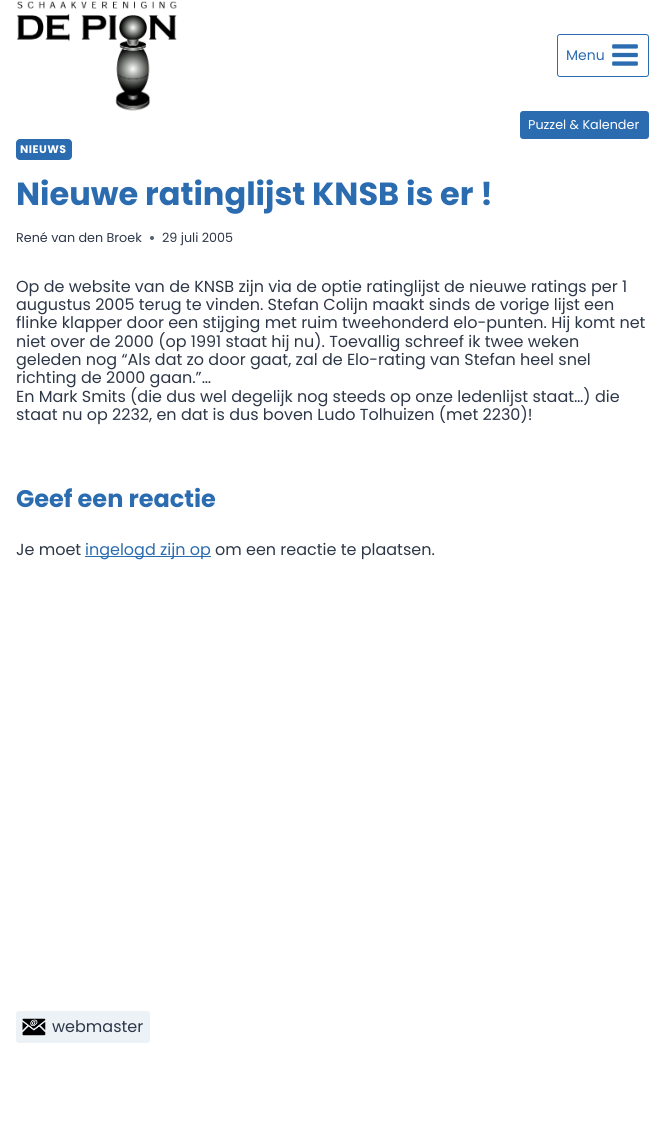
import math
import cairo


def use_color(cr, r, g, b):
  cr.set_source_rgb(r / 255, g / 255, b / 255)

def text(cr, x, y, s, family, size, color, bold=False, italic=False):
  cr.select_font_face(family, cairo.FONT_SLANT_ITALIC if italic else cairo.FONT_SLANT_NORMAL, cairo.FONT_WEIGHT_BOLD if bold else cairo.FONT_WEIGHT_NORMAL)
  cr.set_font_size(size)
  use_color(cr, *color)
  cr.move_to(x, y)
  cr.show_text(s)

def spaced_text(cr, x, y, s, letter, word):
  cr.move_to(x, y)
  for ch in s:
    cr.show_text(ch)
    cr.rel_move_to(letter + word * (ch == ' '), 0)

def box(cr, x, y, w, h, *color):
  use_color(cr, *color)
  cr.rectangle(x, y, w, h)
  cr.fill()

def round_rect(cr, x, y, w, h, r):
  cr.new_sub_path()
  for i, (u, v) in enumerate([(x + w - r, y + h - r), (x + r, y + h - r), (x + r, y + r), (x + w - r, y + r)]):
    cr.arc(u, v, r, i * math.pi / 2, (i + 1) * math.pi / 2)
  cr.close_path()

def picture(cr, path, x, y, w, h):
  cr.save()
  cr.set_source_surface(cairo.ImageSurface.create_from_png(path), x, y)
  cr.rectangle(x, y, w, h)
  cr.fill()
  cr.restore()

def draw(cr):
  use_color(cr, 255, 255, 255)
  cr.paint()
  picture(cr, "img_01.png", 16, 1, 161, 110)
  round_rect(cr, 557.5, 34.5, 91, 42, 2.5)
  use_color(cr, 43, 108, 176)
  cr.set_line_width(1)
  cr.stroke()
  picture(cr, "img_02.png", 612, 44, 26, 22)
  round_rect(cr, 520, 111, 129, 28, 3)
  cr.fill()
  round_rect(cr, 16, 139, 56, 21, 4)
  cr.fill()
  use_color(cr, 87, 95, 109)
  cr.arc(152, 238, 2, 0, 2 * math.pi)
  cr.fill()
  box(cr, 85, 556, 126, 1, 43, 108, 176)
  use_color(cr, 237, 242, 247)
  round_rect(cr, 16, 1011, 134, 32, 3)
  cr.fill()
  picture(cr, "img_03.png", 22, 1018, 24, 18)
  text(cr, 566, 60, "Menu", "Poppins", 14, (43, 108, 176))
  text(cr, 528, 129, "Puzzel & Kalender", "Poppins", 12.75, (255, 255, 255))
  cr.select_font_face("Poppins", cairo.FONT_SLANT_NORMAL, cairo.FONT_WEIGHT_BOLD)
  cr.set_font_size(11)
  spaced_text(cr, 20, 153, "NIEUWS", 0.5, 0)
  text(cr, 16, 205, "Nieuwe ratinglijst KNSB is er !", "Poppins", 32, (43, 108, 176), bold=True)
  text(cr, 16, 242, "René van den Broek", "Poppins", 12.75, (45, 55, 72))
  text(cr, 162, 242, "29 juli 2005", "Poppins", 12.75, (45, 55, 72))
  text(cr, 16, 292, "Op de website van de KNSB zijn via de optie ratinglijst de nieuwe ratings per 1", "Poppins", 16, (45, 55, 72))
  text(cr, 16, 310, "augustus 2005 terug te vinden. Stefan Colijn maakt sinds de vorige lijst een", "Poppins", 16, (45, 55, 72))
  text(cr, 16, 328, "flinke klapper door een stijging met ruim tweehonderd elo-punten. Hij komt net", "Poppins", 16, (45, 55, 72))
  text(cr, 16, 347, "niet over de 2000 (op 1991 staat hij nu). Toevallig schreef ik twee weken", "Poppins", 16, (45, 55, 72))
  text(cr, 16, 365, "geleden nog “Als dat zo door gaat, zal de Elo-rating van Stefan heel snel", "Poppins", 16, (45, 55, 72))
  text(cr, 16, 383, "richting de 2000 gaan.”…", "Poppins", 16, (45, 55, 72))
  text(cr, 16, 402, "En Mark Smits (die dus wel degelijk nog steeds op onze ledenlijst staat…) die", "Poppins", 16, (45, 55, 72))
  text(cr, 16, 420, "staat nu op 2232, en dat is dus boven Ludo Tolhuizen (met 2230)!", "Poppins", 16, (45, 55, 72))
  text(cr, 16, 507, "Geef een reactie", "Poppins", 24, (43, 108, 176), bold=True)
  text(cr, 16, 555, "Je moet", "Poppins", 16, (45, 55, 72))
  text(cr, 85, 555, "ingelogd zijn op", "Poppins", 16, (43, 108, 176))
  text(cr, 215, 555, "om een reactie te plaatsen.", "Poppins", 16, (45, 55, 72))
  text(cr, 52, 1032, "webmaster", "Poppins", 16, (45, 55, 72))


surface = cairo.ImageSurface(cairo.FORMAT_RGB24, 665, 1133)
cr = cairo.Context(surface)
options = cairo.FontOptions()
options.set_hint_metrics(cairo.HINT_METRICS_OFF)
options.set_hint_style(cairo.HINT_STYLE_NONE)
cr.set_font_options(options)
cr.set_miter_limit(4)
draw(cr)
surface.write_to_png("out.png")
